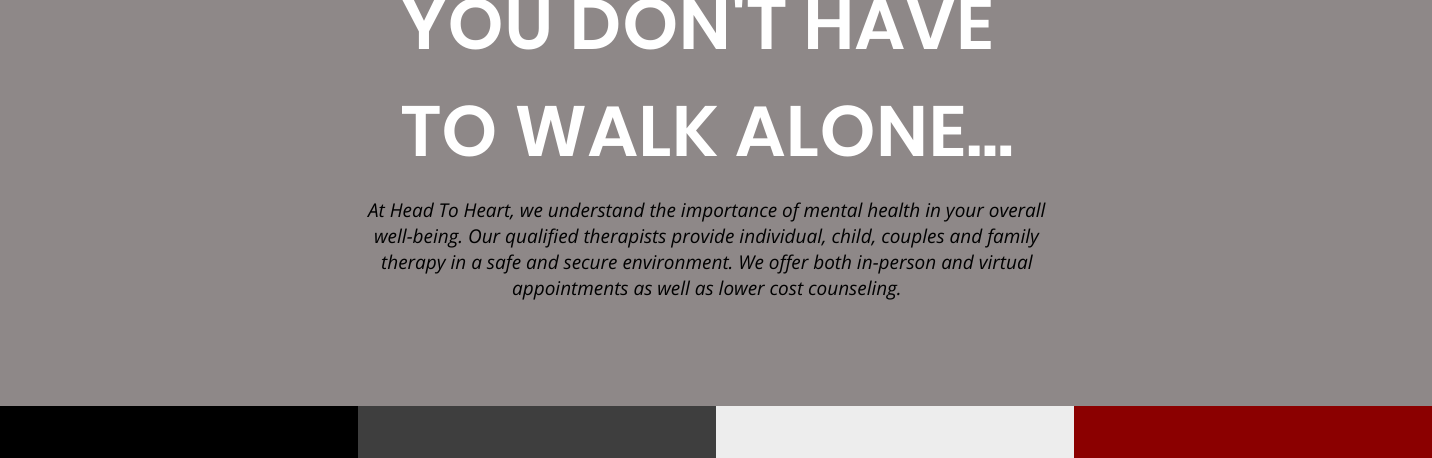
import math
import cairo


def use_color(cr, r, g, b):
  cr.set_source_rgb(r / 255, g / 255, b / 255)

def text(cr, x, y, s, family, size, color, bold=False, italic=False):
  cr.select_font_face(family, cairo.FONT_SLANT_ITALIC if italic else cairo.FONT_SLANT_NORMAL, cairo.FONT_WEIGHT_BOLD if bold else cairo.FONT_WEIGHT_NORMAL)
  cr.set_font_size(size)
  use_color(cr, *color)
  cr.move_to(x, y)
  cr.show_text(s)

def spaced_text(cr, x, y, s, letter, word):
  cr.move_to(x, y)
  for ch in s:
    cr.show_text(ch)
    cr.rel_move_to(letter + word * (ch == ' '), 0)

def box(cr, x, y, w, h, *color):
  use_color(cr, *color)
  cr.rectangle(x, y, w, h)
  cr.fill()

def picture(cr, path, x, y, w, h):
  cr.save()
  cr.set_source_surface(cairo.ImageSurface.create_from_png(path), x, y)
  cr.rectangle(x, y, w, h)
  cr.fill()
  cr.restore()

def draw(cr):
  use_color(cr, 255, 255, 255)
  cr.paint()
  picture(cr, "img_01.png", 0, 0, 1432, 406)
  cr.set_source_rgba(0.569, 0.545, 0.545, 0.97)
  cr.rectangle(0, 0, 1432, 406)
  cr.fill()
  box(cr, 0, 406, 358, 52, 0, 0, 0)
  box(cr, 358, 406, 358, 52, 62, 62, 62)
  box(cr, 716, 406, 358, 52, 237, 237, 237)
  box(cr, 1074, 406, 358, 52, 139, 0, 0)
  cr.select_font_face("Poppins SemiBold")
  cr.set_font_size(71)
  use_color(cr, 255, 255, 255)
  spaced_text(cr, 401, 49, "YOU DON'T HAVE", 0.75, 0)
  spaced_text(cr, 401, 156, "TO WALK ALONE...", 0.75, 0)
  text(cr, 368, 217, "At Head To Heart, we understand the importance of mental health in your overall", "Open Sans", 19, (0, 0, 0), italic=True)
  text(cr, 374, 243, "well-being. Our qualified therapists provide individual, child, couples and family", "Open Sans", 19, (0, 0, 0), italic=True)
  text(cr, 381, 269, "therapy in a safe and secure environment. We offer both in-person and virtual", "Open Sans", 19, (0, 0, 0), italic=True)
  text(cr, 512, 295, "appointments as well as lower cost counseling.", "Open Sans", 19, (0, 0, 0), italic=True)


surface = cairo.ImageSurface(cairo.FORMAT_RGB24, 1432, 458)
cr = cairo.Context(surface)
options = cairo.FontOptions()
options.set_hint_metrics(cairo.HINT_METRICS_OFF)
options.set_hint_style(cairo.HINT_STYLE_NONE)
cr.set_font_options(options)
cr.set_miter_limit(4)
draw(cr)
surface.write_to_png("out.png")
